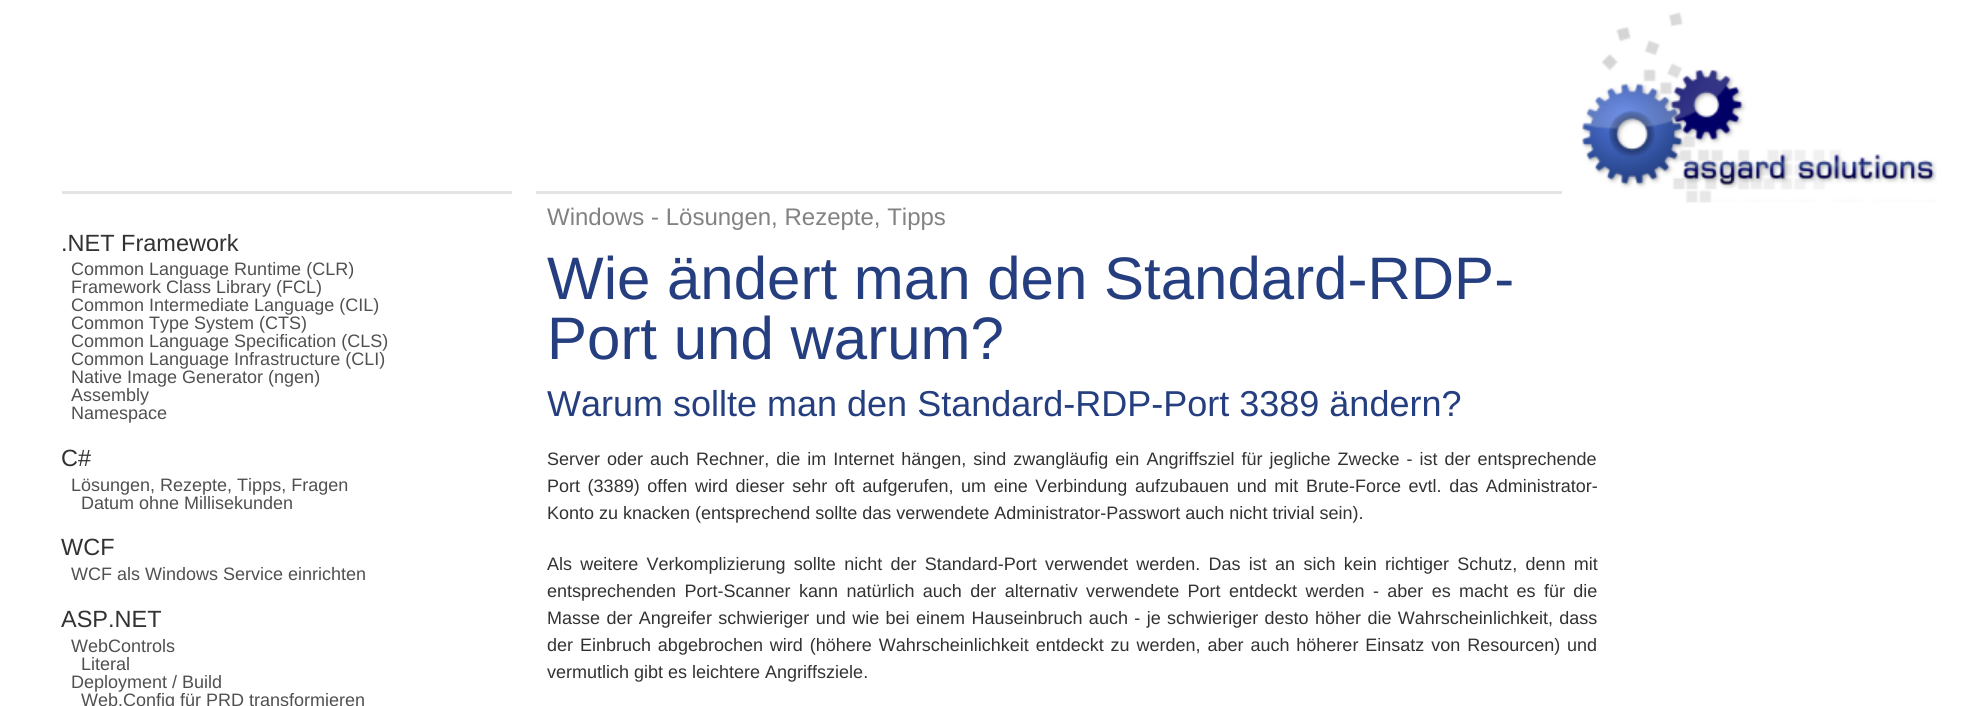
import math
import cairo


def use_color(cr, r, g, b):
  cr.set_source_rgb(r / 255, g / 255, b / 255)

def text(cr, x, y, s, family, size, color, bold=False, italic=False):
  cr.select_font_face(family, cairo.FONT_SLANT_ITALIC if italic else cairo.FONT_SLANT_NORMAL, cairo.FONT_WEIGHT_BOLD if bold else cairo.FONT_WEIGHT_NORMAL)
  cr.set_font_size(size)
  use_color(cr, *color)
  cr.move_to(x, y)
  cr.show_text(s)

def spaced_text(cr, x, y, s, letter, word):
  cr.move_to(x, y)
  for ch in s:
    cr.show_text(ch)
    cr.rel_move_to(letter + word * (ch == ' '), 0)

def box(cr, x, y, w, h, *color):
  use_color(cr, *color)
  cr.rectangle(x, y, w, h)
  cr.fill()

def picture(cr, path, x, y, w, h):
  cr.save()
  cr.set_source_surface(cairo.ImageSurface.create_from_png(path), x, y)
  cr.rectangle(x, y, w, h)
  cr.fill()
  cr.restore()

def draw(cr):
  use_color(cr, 255, 255, 255)
  cr.paint()
  box(cr, 62, 191, 450, 3, 228, 228, 228)
  box(cr, 536, 191, 1026, 3, 228, 228, 228)
  picture(cr, "img_01.png", 1582, 12, 355, 191)
  text(cr, 61, 251, ".NET Framework", "Liberation Sans", 23.5, (50, 50, 50))
  text(cr, 71, 275, "Common Language Runtime (CLR)", "Liberation Sans", 18, (80, 80, 80))
  text(cr, 71, 293, "Framework Class Library (FCL)", "Liberation Sans", 18, (80, 80, 80))
  text(cr, 71, 311, "Common Intermediate Language (CIL)", "Liberation Sans", 18, (80, 80, 80))
  text(cr, 71, 329, "Common Type System (CTS)", "Liberation Sans", 18, (80, 80, 80))
  text(cr, 71, 347, "Common Language Specification (CLS)", "Liberation Sans", 18, (80, 80, 80))
  text(cr, 71, 365, "Common Language Infrastructure (CLI)", "Liberation Sans", 18, (80, 80, 80))
  text(cr, 71, 383, "Native Image Generator (ngen)", "Liberation Sans", 18, (80, 80, 80))
  text(cr, 71, 401, "Assembly", "Liberation Sans", 18, (80, 80, 80))
  text(cr, 71, 419, "Namespace", "Liberation Sans", 18, (80, 80, 80))
  text(cr, 61, 466, "C#", "Liberation Sans", 23.5, (50, 50, 50))
  text(cr, 71, 491, "Lösungen, Rezepte, Tipps, Fragen", "Liberation Sans", 18, (80, 80, 80))
  text(cr, 81, 509, "Datum ohne Millisekunden", "Liberation Sans", 18, (80, 80, 80))
  text(cr, 61, 555, "WCF", "Liberation Sans", 23.5, (50, 50, 50))
  text(cr, 71, 580, "WCF als Windows Service einrichten", "Liberation Sans", 18, (80, 80, 80))
  text(cr, 61, 627, "ASP.NET", "Liberation Sans", 23.5, (50, 50, 50))
  text(cr, 71, 652, "WebControls", "Liberation Sans", 18, (80, 80, 80))
  text(cr, 81, 670, "Literal", "Liberation Sans", 18, (80, 80, 80))
  text(cr, 71, 688, "Deployment / Build", "Liberation Sans", 18, (80, 80, 80))
  text(cr, 81, 706, "Web.Config für PRD transformieren", "Liberation Sans", 18, (80, 80, 80))
  text(cr, 547, 225, "Windows - Lösungen, Rezepte, Tipps", "Liberation Sans", 24, (130, 130, 130))
  text(cr, 547, 299, "Wie ändert man den Standard-RDP-", "Liberation Sans", 60, (37, 62, 127))
  text(cr, 547, 359, "Port und warum?", "Liberation Sans", 60, (37, 62, 127))
  text(cr, 547, 416, "Warum sollte man den Standard-RDP-Port 3389 ändern?", "Liberation Sans", 36, (37, 62, 127))
  cr.set_font_size(18)
  use_color(cr, 50, 50, 50)
  spaced_text(cr, 547, 465, "Server oder auch Rechner, die im Internet hängen, sind zwangläufig ein Angriffsziel für jegliche Zwecke - ist der entsprechende", 0, 2)
  spaced_text(cr, 547, 492, "Port (3389) offen wird dieser sehr oft aufgerufen, um eine Verbindung aufzubauen und mit Brute-Force evtl. das Administrator-", 0, 2.6)
  text(cr, 547, 519, "Konto zu knacken (entsprechend sollte das verwendete Administrator-Passwort auch nicht trivial sein).", "Liberation Sans", 18, (50, 50, 50))
  spaced_text(cr, 547, 570, "Als weitere Verkomplizierung sollte nicht der Standard-Port verwendet werden. Das ist an sich kein richtiger Schutz, denn mit", 0, 3.25)
  spaced_text(cr, 547, 597, "entsprechenden Port-Scanner kann natürlich auch der alternativ verwendete Port entdeckt werden - aber es macht es für die", 0, 3.4)
  spaced_text(cr, 547, 624, "Masse der Angreifer schwieriger und wie bei einem Hauseinbruch auch - je schwieriger desto höher die Wahrscheinlichkeit, dass", 0, 1.4)
  spaced_text(cr, 547, 651, "der Einbruch abgebrochen wird (höhere Wahrscheinlichkeit entdeckt zu werden, aber auch höherer Einsatz von Resourcen) und", 0, 1.9)
  text(cr, 547, 678, "vermutlich gibt es leichtere Angriffsziele.", "Liberation Sans", 18, (50, 50, 50))


surface = cairo.ImageSurface(cairo.FORMAT_RGB24, 1973, 706)
cr = cairo.Context(surface)
options = cairo.FontOptions()
options.set_hint_metrics(cairo.HINT_METRICS_OFF)
options.set_hint_style(cairo.HINT_STYLE_NONE)
cr.set_font_options(options)
cr.set_miter_limit(4)
draw(cr)
surface.write_to_png("out.png")
